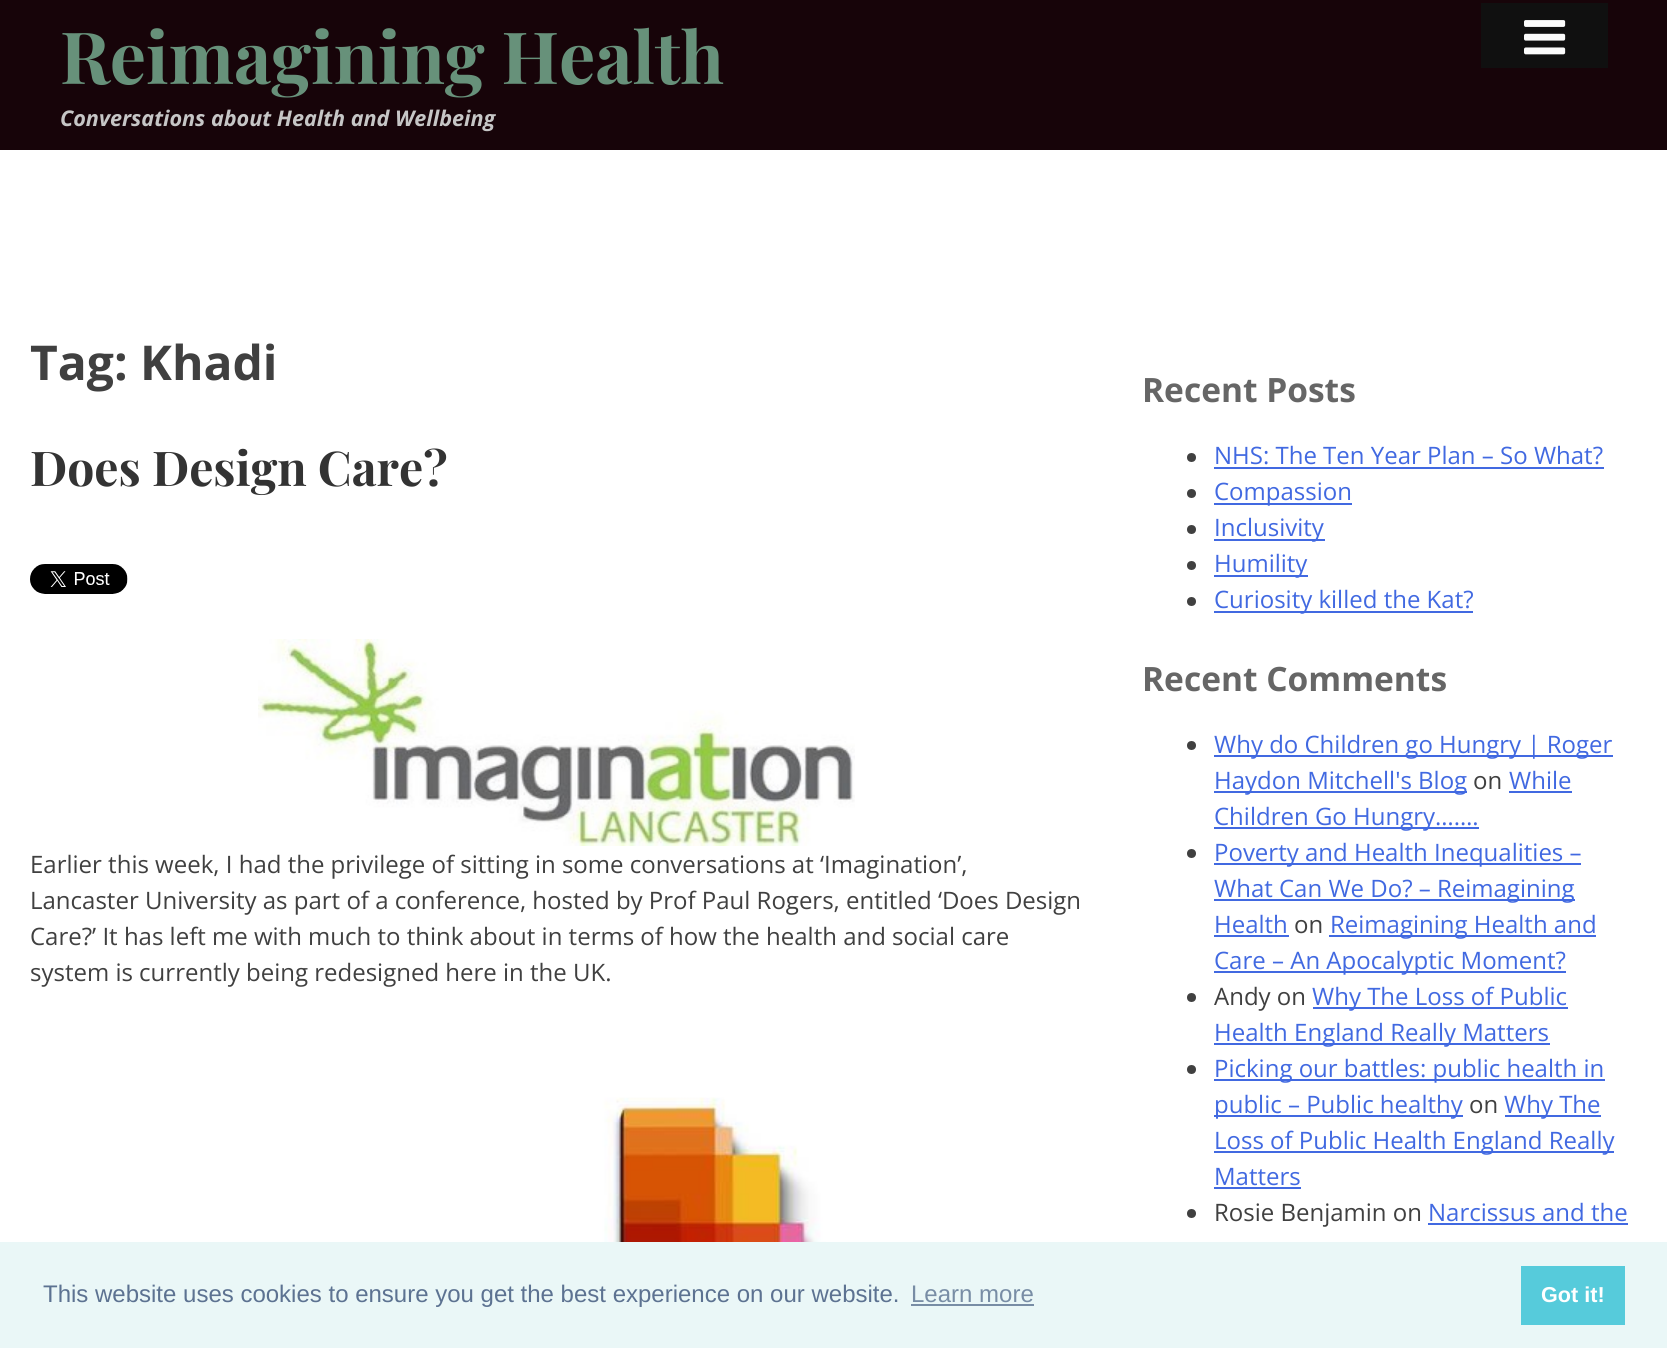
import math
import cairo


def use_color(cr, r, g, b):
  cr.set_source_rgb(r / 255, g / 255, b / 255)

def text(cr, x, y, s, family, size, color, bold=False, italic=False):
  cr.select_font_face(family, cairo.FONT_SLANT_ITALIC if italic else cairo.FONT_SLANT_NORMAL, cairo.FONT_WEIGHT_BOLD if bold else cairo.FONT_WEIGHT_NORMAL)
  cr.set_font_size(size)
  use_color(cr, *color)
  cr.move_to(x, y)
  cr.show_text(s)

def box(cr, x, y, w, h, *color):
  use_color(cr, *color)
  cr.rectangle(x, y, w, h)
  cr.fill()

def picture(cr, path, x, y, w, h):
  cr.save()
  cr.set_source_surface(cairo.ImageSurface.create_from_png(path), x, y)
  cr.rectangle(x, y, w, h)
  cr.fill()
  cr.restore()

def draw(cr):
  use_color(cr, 255, 255, 255)
  cr.paint()
  box(cr, 0, 0, 1667, 150, 23, 4, 9)
  box(cr, 1481, 3, 127, 65, 16, 16, 16)
  picture(cr, "img_01.png", 1524, 20, 42, 35)
  picture(cr, "img_02.png", 30, 564, 98, 30)
  picture(cr, "img_03.png", 258, 639, 597, 207)
  picture(cr, "img_04.png", 322, 1097, 522, 145)
  use_color(cr, 64, 64, 64)
  cr.arc(1191.5, 457.5, 4.5, 0, 2 * math.pi)
  cr.fill()
  box(cr, 1214, 467, 390, 2, 65, 105, 225)
  use_color(cr, 64, 64, 64)
  cr.arc(1191.5, 493.5, 4.5, 0, 2 * math.pi)
  cr.fill()
  box(cr, 1214, 503, 138, 2, 65, 105, 225)
  use_color(cr, 64, 64, 64)
  cr.arc(1191.5, 529.5, 4.5, 0, 2 * math.pi)
  cr.fill()
  box(cr, 1214, 539, 111, 2, 65, 105, 225)
  use_color(cr, 64, 64, 64)
  cr.arc(1191.5, 565.5, 4.5, 0, 2 * math.pi)
  cr.fill()
  box(cr, 1214, 575, 94, 2, 65, 105, 225)
  use_color(cr, 64, 64, 64)
  cr.arc(1191.5, 601.5, 4.5, 0, 2 * math.pi)
  cr.fill()
  box(cr, 1214, 611, 259, 2, 65, 105, 225)
  use_color(cr, 64, 64, 64)
  cr.arc(1191.5, 745.5, 4.5, 0, 2 * math.pi)
  cr.fill()
  box(cr, 1214, 755, 399, 2, 65, 105, 225)
  box(cr, 1214, 791, 253, 2, 65, 105, 225)
  box(cr, 1509, 791, 63, 2, 65, 105, 225)
  box(cr, 1214, 827, 265, 2, 65, 105, 225)
  use_color(cr, 64, 64, 64)
  cr.arc(1191.5, 853.5, 4.5, 0, 2 * math.pi)
  cr.fill()
  box(cr, 1214, 863, 367, 2, 65, 105, 225)
  box(cr, 1214, 899, 361, 2, 65, 105, 225)
  box(cr, 1214, 935, 75, 2, 65, 105, 225)
  box(cr, 1329, 935, 267, 2, 65, 105, 225)
  box(cr, 1214, 971, 352, 2, 65, 105, 225)
  use_color(cr, 64, 64, 64)
  cr.arc(1191.5, 997.5, 4.5, 0, 2 * math.pi)
  cr.fill()
  box(cr, 1313, 1007, 255, 2, 65, 105, 225)
  box(cr, 1214, 1043, 336, 2, 65, 105, 225)
  use_color(cr, 64, 64, 64)
  cr.arc(1191.5, 1069.5, 4.5, 0, 2 * math.pi)
  cr.fill()
  box(cr, 1214, 1079, 391, 2, 65, 105, 225)
  box(cr, 1214, 1115, 249, 2, 65, 105, 225)
  box(cr, 1505, 1115, 96, 2, 65, 105, 225)
  box(cr, 1214, 1151, 400, 2, 65, 105, 225)
  box(cr, 1214, 1187, 87, 2, 65, 105, 225)
  use_color(cr, 64, 64, 64)
  cr.arc(1191.5, 1213.5, 4.5, 0, 2 * math.pi)
  cr.fill()
  box(cr, 1428, 1223, 200, 2, 65, 105, 225)
  box(cr, 0, 1242, 1667, 106, 234, 247, 247)
  box(cr, 911, 1304, 123, 2, 120, 141, 165)
  box(cr, 1521, 1266, 104, 59, 86, 203, 219)
  text(cr, 60, 84, "Reimagining Health", "Playfair Display", 72, (103, 145, 122), bold=True)
  text(cr, 60, 126, "Conversations about Health and Wellbeing", "Open Sans", 21.6, (198, 198, 198), bold=True, italic=True)
  text(cr, 30, 380, "Tag: Khadi", "Open Sans", 48, (64, 64, 64), bold=True)
  text(cr, 30, 486, "Does Design Care?", "Playfair Display", 48, (51, 51, 51), bold=True)
  text(cr, 30, 873, "Earlier this week, I had the privilege of sitting in some conversations at ‘Imagination’,", "Open Sans", 24, (64, 64, 64))
  text(cr, 30, 909, "Lancaster University as part of a conference, hosted by Prof Paul Rogers, entitled ‘Does Design", "Open Sans", 24, (64, 64, 64))
  text(cr, 30, 945, "Care?’ It has left me with much to think about in terms of how the health and social care", "Open Sans", 24, (64, 64, 64))
  text(cr, 30, 981, "system is currently being redesigned here in the UK.", "Open Sans", 24, (64, 64, 64))
  text(cr, 1142, 402, "Recent Posts", "Open Sans", 33.5, (102, 102, 102), bold=True)
  text(cr, 1214, 464, "NHS: The Ten Year Plan – So What?", "Open Sans", 24, (65, 105, 225))
  text(cr, 1214, 500, "Compassion", "Open Sans", 24, (65, 105, 225))
  text(cr, 1214, 536, "Inclusivity", "Open Sans", 24, (65, 105, 225))
  text(cr, 1214, 572, "Humility", "Open Sans", 24, (65, 105, 225))
  text(cr, 1214, 608, "Curiosity killed the Kat?", "Open Sans", 24, (65, 105, 225))
  text(cr, 1142, 691, "Recent Comments", "Open Sans", 33.5, (102, 102, 102), bold=True)
  text(cr, 1214, 753, "Why do Children go Hungry | Roger", "Open Sans", 24, (65, 105, 225))
  text(cr, 1214, 789, "Haydon Mitchell's Blog", "Open Sans", 24, (65, 105, 225))
  text(cr, 1473, 789, "on", "Open Sans", 24, (64, 64, 64))
  text(cr, 1509, 789, "While", "Open Sans", 24, (65, 105, 225))
  text(cr, 1214, 825, "Children Go Hungry…….", "Open Sans", 24, (65, 105, 225))
  text(cr, 1214, 861, "Poverty and Health Inequalities –", "Open Sans", 24, (65, 105, 225))
  text(cr, 1214, 897, "What Can We Do? – Reimagining", "Open Sans", 24, (65, 105, 225))
  text(cr, 1214, 933, "Health", "Open Sans", 24, (65, 105, 225))
  text(cr, 1294, 933, "on", "Open Sans", 24, (64, 64, 64))
  text(cr, 1330, 933, "Reimagining Health and", "Open Sans", 24, (65, 105, 225))
  text(cr, 1214, 969, "Care – An Apocalyptic Moment?", "Open Sans", 24, (65, 105, 225))
  text(cr, 1214, 1005, "Andy on", "Open Sans", 24, (64, 64, 64))
  text(cr, 1312, 1005, "Why The Loss of Public", "Open Sans", 24, (65, 105, 225))
  text(cr, 1214, 1041, "Health England Really Matters", "Open Sans", 24, (65, 105, 225))
  text(cr, 1214, 1077, "Picking our battles: public health in", "Open Sans", 24, (65, 105, 225))
  text(cr, 1214, 1113, "public – Public healthy", "Open Sans", 24, (65, 105, 225))
  text(cr, 1469, 1113, "on", "Open Sans", 24, (64, 64, 64))
  text(cr, 1504, 1113, "Why The", "Open Sans", 24, (65, 105, 225))
  text(cr, 1214, 1149, "Loss of Public Health England Really", "Open Sans", 24, (65, 105, 225))
  text(cr, 1214, 1185, "Matters", "Open Sans", 24, (65, 105, 225))
  text(cr, 1214, 1221, "Rosie Benjamin on", "Open Sans", 24, (64, 64, 64))
  text(cr, 1428, 1221, "Narcissus and the", "Open Sans", 24, (65, 105, 225))
  text(cr, 43, 1302, "This website uses cookies to ensure you get the best experience on our website.", "Liberation Sans", 24, (92, 114, 145))
  text(cr, 911, 1302, "Learn more", "Liberation Sans", 24, (120, 141, 165))
  text(cr, 1541, 1302, "Got it!", "Liberation Sans", 21.6, (255, 255, 255), bold=True)


surface = cairo.ImageSurface(cairo.FORMAT_RGB24, 1667, 1348)
cr = cairo.Context(surface)
options = cairo.FontOptions()
options.set_hint_metrics(cairo.HINT_METRICS_OFF)
options.set_hint_style(cairo.HINT_STYLE_NONE)
cr.set_font_options(options)
cr.set_miter_limit(4)
draw(cr)
surface.write_to_png("out.png")
